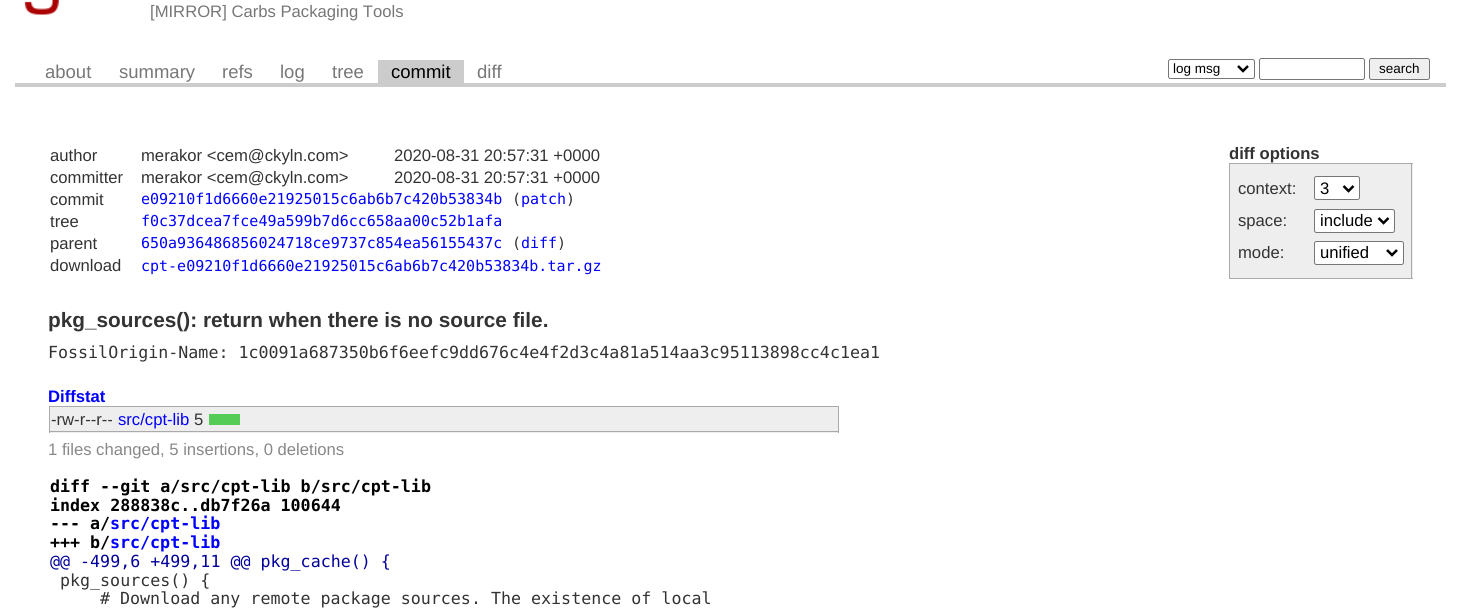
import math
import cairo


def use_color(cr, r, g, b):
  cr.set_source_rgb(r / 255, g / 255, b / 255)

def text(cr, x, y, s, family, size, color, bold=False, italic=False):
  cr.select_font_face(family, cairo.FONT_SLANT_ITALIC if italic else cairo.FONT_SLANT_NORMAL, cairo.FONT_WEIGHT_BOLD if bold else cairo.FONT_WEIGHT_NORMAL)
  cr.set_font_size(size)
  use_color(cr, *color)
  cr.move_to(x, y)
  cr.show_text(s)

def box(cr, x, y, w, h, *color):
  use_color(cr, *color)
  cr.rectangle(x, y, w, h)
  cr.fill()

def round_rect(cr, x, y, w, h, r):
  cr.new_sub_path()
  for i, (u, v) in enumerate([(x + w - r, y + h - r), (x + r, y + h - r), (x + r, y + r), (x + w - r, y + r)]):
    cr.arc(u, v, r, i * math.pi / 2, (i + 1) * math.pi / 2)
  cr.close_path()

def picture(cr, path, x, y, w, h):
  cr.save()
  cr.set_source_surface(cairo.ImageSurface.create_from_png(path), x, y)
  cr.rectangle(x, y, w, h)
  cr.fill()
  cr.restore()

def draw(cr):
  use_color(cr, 255, 255, 255)
  cr.paint()
  picture(cr, "img_01.png", 24, 0, 35, 15)
  box(cr, 15, 83, 1431, 4, 204, 204, 204)
  box(cr, 378, 60, 86, 23, 204, 204, 204)
  round_rect(cr, 1168.5, 59.5, 86, 19, 2)
  use_color(cr, 118, 118, 118)
  cr.set_line_width(1)
  cr.stroke()
  cr.new_path()
  cr.move_to(1238, 66)
  cr.line_to(1243, 71)
  cr.line_to(1248, 66)
  use_color(cr, 0, 0, 0)
  cr.set_line_width(2.5)
  cr.stroke()
  round_rect(cr, 1259.5, 58.5, 105, 21, 2)
  use_color(cr, 118, 118, 118)
  cr.set_line_width(1)
  cr.stroke()
  use_color(cr, 239, 239, 239)
  round_rect(cr, 1369.5, 58.5, 60, 21, 2)
  cr.fill_preserve()
  use_color(cr, 118, 118, 118)
  cr.stroke()
  box(cr, 1230, 164, 183, 114, 238, 238, 238)
  box(cr, 1229, 163, 184, 1, 170, 170, 170)
  box(cr, 1411, 163, 1, 116, 170, 170, 170)
  box(cr, 1229, 278, 184, 1, 170, 170, 170)
  box(cr, 1229, 163, 1, 116, 170, 170, 170)
  use_color(cr, 255, 255, 255)
  round_rect(cr, 1314.5, 176.5, 45, 23, 2)
  cr.fill_preserve()
  use_color(cr, 118, 118, 118)
  cr.stroke()
  cr.new_path()
  cr.move_to(1343.5, 186)
  cr.line_to(1348.5, 191)
  cr.line_to(1353.5, 186)
  use_color(cr, 0, 0, 0)
  cr.set_line_width(2.5)
  cr.stroke()
  use_color(cr, 255, 255, 255)
  round_rect(cr, 1314.5, 209.5, 80, 23, 2)
  cr.fill_preserve()
  use_color(cr, 118, 118, 118)
  cr.set_line_width(1)
  cr.stroke()
  cr.new_path()
  cr.move_to(1378.5, 218)
  cr.line_to(1383.5, 223)
  cr.line_to(1388.5, 218)
  use_color(cr, 0, 0, 0)
  cr.set_line_width(2.5)
  cr.stroke()
  use_color(cr, 255, 255, 255)
  round_rect(cr, 1314.5, 241.5, 89, 23, 2)
  cr.fill_preserve()
  use_color(cr, 118, 118, 118)
  cr.set_line_width(1)
  cr.stroke()
  cr.new_path()
  cr.move_to(1387, 250)
  cr.line_to(1392, 255)
  cr.line_to(1397, 250)
  use_color(cr, 0, 0, 0)
  cr.set_line_width(2.5)
  cr.stroke()
  box(cr, 50, 407, 788, 26, 238, 238, 238)
  box(cr, 49, 406, 790, 1, 170, 170, 170)
  box(cr, 838, 406, 1, 27, 170, 170, 170)
  box(cr, 49, 431, 790, 1, 170, 170, 170)
  box(cr, 49, 406, 1, 27, 170, 170, 170)
  box(cr, 209, 414, 31, 11, 85, 204, 85)
  text(cr, 150, 17, "[MIRROR] Carbs Packaging Tools", "Liberation Sans", 16.65, (119, 119, 119))
  text(cr, 45, 78, "about", "Liberation Sans", 18.5, (119, 119, 119))
  text(cr, 119, 78, "summary", "Liberation Sans", 18.5, (119, 119, 119))
  text(cr, 222, 78, "refs", "Liberation Sans", 18.5, (119, 119, 119))
  text(cr, 280, 78, "log", "Liberation Sans", 18.5, (119, 119, 119))
  text(cr, 332, 78, "tree", "Liberation Sans", 18.5, (119, 119, 119))
  text(cr, 391, 78, "commit", "Liberation Sans", 18.5, (0, 0, 0))
  text(cr, 477, 78, "diff", "Liberation Sans", 18.5, (119, 119, 119))
  text(cr, 1173, 73, "log msg", "Liberation Sans", 13.5, (0, 0, 0))
  text(cr, 1379, 73, "search", "Liberation Sans", 13.5, (0, 0, 0))
  text(cr, 50, 161, "author", "Liberation Sans", 16.65, (51, 51, 51))
  text(cr, 141, 161, "merakor <cem@ckyln.com>", "Liberation Sans", 16.65, (51, 51, 51))
  text(cr, 394, 161, "2020-08-31 20:57:31 +0000", "Liberation Sans", 16.65, (51, 51, 51))
  text(cr, 50, 183, "committer", "Liberation Sans", 16.65, (51, 51, 51))
  text(cr, 141, 183, "merakor <cem@ckyln.com>", "Liberation Sans", 16.65, (51, 51, 51))
  text(cr, 394, 183, "2020-08-31 20:57:31 +0000", "Liberation Sans", 16.65, (51, 51, 51))
  text(cr, 50, 205, "commit", "Liberation Sans", 16.65, (51, 51, 51))
  text(cr, 141, 204, "e09210f1d6660e21925015c6ab6b7c420b53834b", "DejaVu Sans Mono", 15, (0, 0, 255))
  text(cr, 512, 204, "(", "DejaVu Sans Mono", 15, (51, 51, 51))
  text(cr, 521, 204, "patch", "DejaVu Sans Mono", 15, (0, 0, 255))
  text(cr, 566, 204, ")", "DejaVu Sans Mono", 15, (51, 51, 51))
  text(cr, 50, 227, "tree", "Liberation Sans", 16.65, (51, 51, 51))
  text(cr, 141, 226, "f0c37dcea7fce49a599b7d6cc658aa00c52b1afa", "DejaVu Sans Mono", 15, (0, 0, 255))
  text(cr, 50, 249, "parent", "Liberation Sans", 16.65, (51, 51, 51))
  text(cr, 141, 248, "650a936486856024718ce9737c854ea56155437c", "DejaVu Sans Mono", 15, (0, 0, 255))
  text(cr, 512, 248, "(", "DejaVu Sans Mono", 15, (51, 51, 51))
  text(cr, 521, 248, "diff", "DejaVu Sans Mono", 15, (0, 0, 255))
  text(cr, 557, 248, ")", "DejaVu Sans Mono", 15, (51, 51, 51))
  text(cr, 50, 271, "download", "Liberation Sans", 16.65, (51, 51, 51))
  text(cr, 141, 271, "cpt-e09210f1d6660e21925015c6ab6b7c420b53834b.tar.gz", "DejaVu Sans Mono", 15, (0, 0, 255))
  text(cr, 1229, 159, "diff options", "Liberation Sans", 16.65, (51, 51, 51), bold=True)
  text(cr, 1238, 194, "context:", "Liberation Sans", 16.65, (51, 51, 51))
  text(cr, 1320, 194, "3", "Liberation Sans", 16.65, (0, 0, 0))
  text(cr, 1238, 226, "space:", "Liberation Sans", 16.65, (51, 51, 51))
  text(cr, 1320, 226, "include", "Liberation Sans", 16.65, (0, 0, 0))
  text(cr, 1238, 258, "mode:", "Liberation Sans", 16.65, (51, 51, 51))
  text(cr, 1320, 258, "unified", "Liberation Sans", 16.65, (0, 0, 0))
  text(cr, 48, 327, "pkg_sources(): return when there is no source file.", "Liberation Sans", 20.8, (51, 51, 51), bold=True)
  text(cr, 48, 358, "FossilOrigin-Name: 1c0091a687350b6f6eefc9dd676c4e4f2d3c4a81a514aa3c95113898cc4c1ea1", "DejaVu Sans Mono", 16.65, (51, 51, 51))
  text(cr, 48, 402, "Diffstat", "Liberation Sans", 16.65, (0, 0, 255), bold=True)
  text(cr, 51, 425, "-rw-r--r--", "Liberation Sans", 16.65, (51, 51, 51))
  text(cr, 118, 425, "src/cpt-lib", "Liberation Sans", 16.65, (0, 0, 255))
  text(cr, 194, 425, "5", "Liberation Sans", 16.65, (51, 51, 51))
  text(cr, 48, 455, "1 files changed, 5 insertions, 0 deletions", "Liberation Sans", 16.65, (136, 136, 136))
  text(cr, 50, 492, "diff --git a/src/cpt-lib b/src/cpt-lib", "DejaVu Sans Mono", 16.65, (0, 0, 0), bold=True)
  text(cr, 50, 511, "index 288838c..db7f26a 100644", "DejaVu Sans Mono", 16.65, (0, 0, 0), bold=True)
  text(cr, 50, 529, "--- a/", "DejaVu Sans Mono", 16.65, (0, 0, 0), bold=True)
  text(cr, 110, 529, "src/cpt-lib", "DejaVu Sans Mono", 16.65, (0, 0, 255), bold=True)
  text(cr, 50, 548, "+++ b/", "DejaVu Sans Mono", 16.65, (0, 0, 0), bold=True)
  text(cr, 110, 548, "src/cpt-lib", "DejaVu Sans Mono", 16.65, (0, 0, 255), bold=True)
  text(cr, 50, 567, "@@ -499,6 +499,11 @@ pkg_cache() {", "DejaVu Sans Mono", 16.65, (0, 0, 153))
  text(cr, 60, 586, "pkg_sources() {", "DejaVu Sans Mono", 16.65, (51, 51, 51))
  text(cr, 100, 604, "# Download any remote package sources. The existence of local", "DejaVu Sans Mono", 16.65, (51, 51, 51))


surface = cairo.ImageSurface(cairo.FORMAT_RGB24, 1461, 615)
cr = cairo.Context(surface)
options = cairo.FontOptions()
options.set_hint_metrics(cairo.HINT_METRICS_OFF)
options.set_hint_style(cairo.HINT_STYLE_NONE)
cr.set_font_options(options)
cr.set_miter_limit(4)
draw(cr)
surface.write_to_png("out.png")
